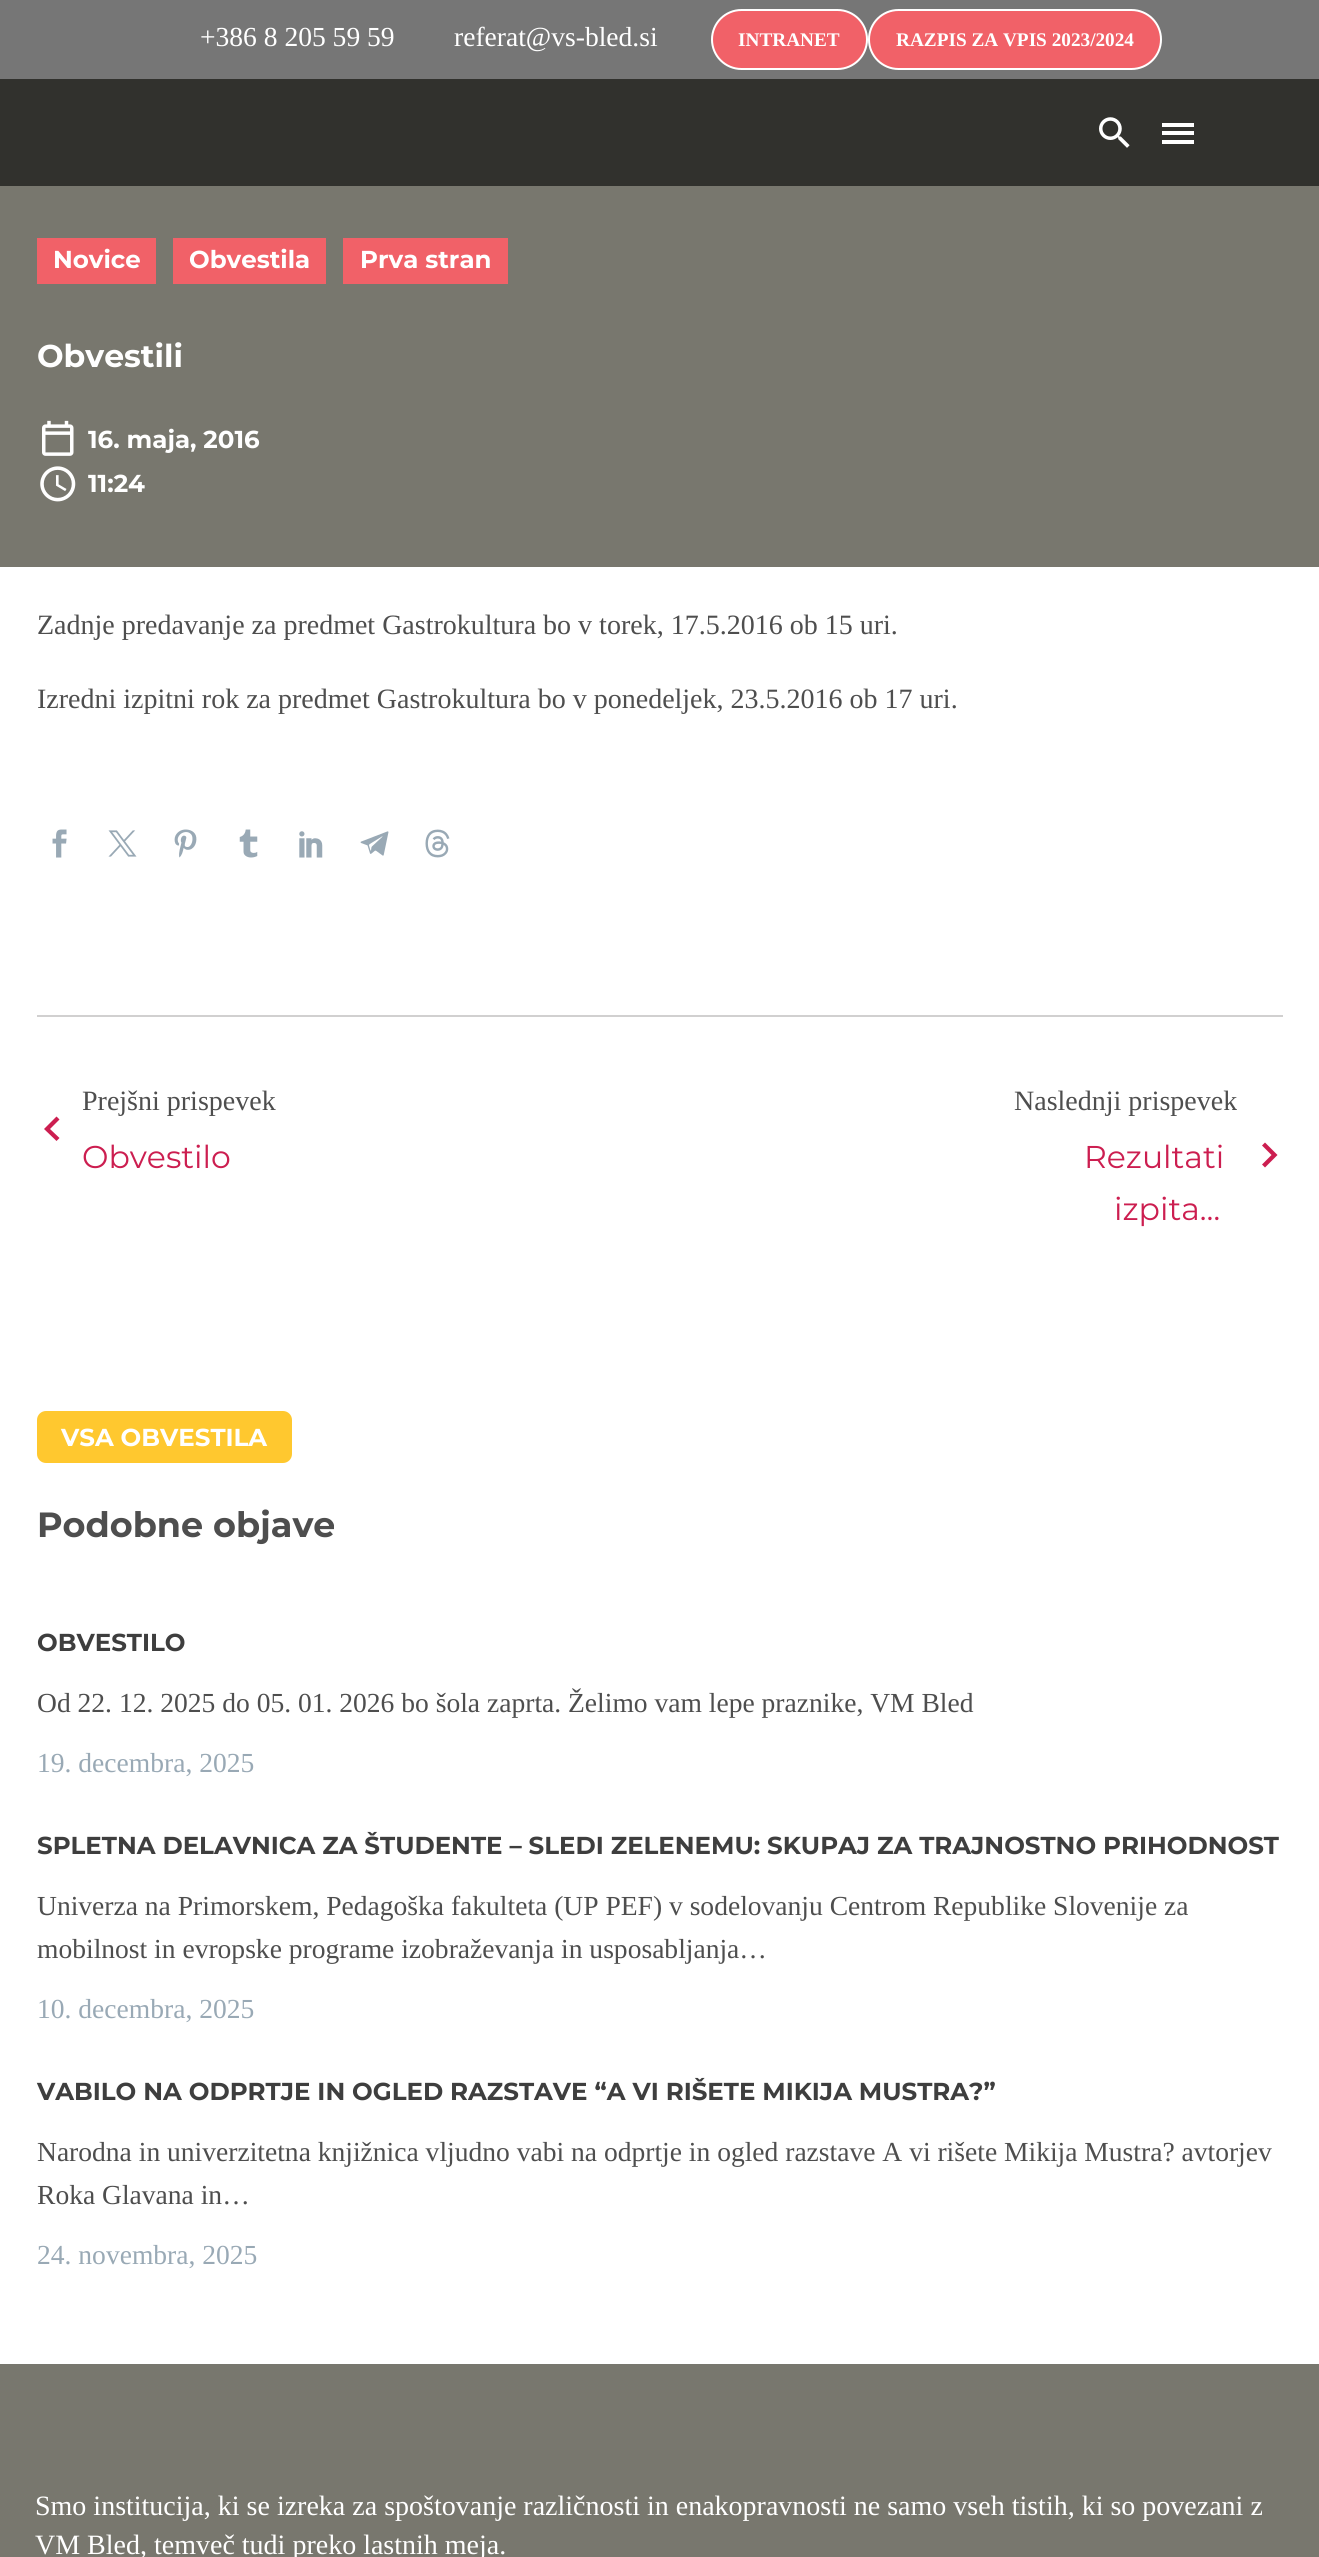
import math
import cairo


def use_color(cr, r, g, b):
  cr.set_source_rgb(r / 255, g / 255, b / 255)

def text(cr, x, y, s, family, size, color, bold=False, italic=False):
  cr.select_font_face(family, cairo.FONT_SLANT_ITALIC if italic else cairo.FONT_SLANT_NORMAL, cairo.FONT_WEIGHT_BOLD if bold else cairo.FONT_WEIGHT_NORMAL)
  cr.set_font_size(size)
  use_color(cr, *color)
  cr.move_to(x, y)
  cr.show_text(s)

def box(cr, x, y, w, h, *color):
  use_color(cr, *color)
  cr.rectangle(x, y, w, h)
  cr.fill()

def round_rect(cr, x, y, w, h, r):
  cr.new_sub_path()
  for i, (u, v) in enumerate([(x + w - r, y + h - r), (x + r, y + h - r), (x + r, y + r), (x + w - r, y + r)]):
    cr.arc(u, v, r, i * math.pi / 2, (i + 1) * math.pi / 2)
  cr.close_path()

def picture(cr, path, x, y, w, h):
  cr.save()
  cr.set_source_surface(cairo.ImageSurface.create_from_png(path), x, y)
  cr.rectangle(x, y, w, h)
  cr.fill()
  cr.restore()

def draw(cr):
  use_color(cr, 255, 255, 255)
  cr.paint()
  box(cr, 0, 0, 1319, 79, 118, 118, 118)
  use_color(cr, 241, 97, 104)
  round_rect(cr, 712, 10, 155, 59, 29.5)
  cr.fill_preserve()
  use_color(cr, 255, 255, 255)
  cr.stroke()
  use_color(cr, 241, 97, 104)
  round_rect(cr, 869, 10, 292, 59, 29.5)
  cr.fill_preserve()
  use_color(cr, 255, 255, 255)
  cr.stroke()
  box(cr, 0, 79, 1319, 107, 49, 49, 45)
  picture(cr, "img_01.png", 1099, 117, 31, 31)
  box(cr, 1162, 123, 32, 4, 255, 255, 255)
  box(cr, 1162, 131, 32, 4, 255, 255, 255)
  box(cr, 1162, 140, 32, 4, 255, 255, 255)
  box(cr, 0, 186, 1319, 381, 120, 119, 110)
  box(cr, 37, 238, 119, 46, 241, 97, 104)
  box(cr, 173, 238, 153, 46, 241, 97, 104)
  box(cr, 343, 238, 165, 46, 241, 97, 104)
  picture(cr, "img_02.png", 42, 420, 32, 36)
  picture(cr, "img_03.png", 40, 466, 36, 36)
  picture(cr, "img_04.png", 52, 829, 15, 29)
  picture(cr, "img_05.png", 108, 830, 29, 27)
  picture(cr, "img_06.png", 174, 829, 23, 29)
  picture(cr, "img_07.png", 239, 829, 19, 29)
  picture(cr, "img_08.png", 299, 831, 24, 27)
  picture(cr, "img_09.png", 360, 831, 29, 25)
  picture(cr, "img_10.png", 425, 829, 25, 29)
  box(cr, 37, 1015, 1246, 2, 209, 208, 208)
  use_color(cr, 204, 30, 80)
  cr.new_path()
  cr.move_to(56.5, 1116.5)
  cr.line_to(44, 1129)
  cr.line_to(56.5, 1141)
  cr.line_to(59.5, 1138)
  cr.line_to(50, 1129)
  cr.line_to(59.5, 1119.5)
  cr.close_path()
  cr.fill()
  cr.new_path()
  cr.move_to(1265, 1167.5)
  cr.line_to(1277.5, 1155)
  cr.line_to(1265, 1142.5)
  cr.line_to(1262, 1145.5)
  cr.line_to(1271.5, 1155)
  cr.line_to(1262, 1164.5)
  cr.close_path()
  cr.fill()
  use_color(cr, 255, 200, 47)
  round_rect(cr, 37, 1411, 255, 52, 9)
  cr.fill()
  box(cr, 0, 2364, 1319, 193, 120, 119, 110)
  text(cr, 200, 46, "+386 8 205 59 59", "Liberation Serif", 27.55, (255, 255, 255))
  text(cr, 454, 46, "referat@vs-bled.si", "Liberation Serif", 27.55, (255, 255, 255))
  text(cr, 738, 46, "INTRANET", "Liberation Serif", 19.25, (255, 255, 255), bold=True)
  text(cr, 896, 46, "RAZPIS ZA VPIS 2023/2024", "Liberation Serif", 19.25, (255, 255, 255), bold=True)
  text(cr, 53, 268, "Novice", "Montserrat", 24.5, (255, 255, 255), bold=True)
  text(cr, 189, 268, "Obvestila", "Montserrat", 24.5, (255, 255, 255), bold=True)
  text(cr, 360, 268, "Prva stran", "Montserrat", 24.5, (255, 255, 255), bold=True)
  text(cr, 37, 367, "Obvestili", "Montserrat", 31.5, (255, 255, 255), bold=True)
  text(cr, 88, 448, "16. maja, 2016", "Montserrat", 24.5, (255, 255, 255), bold=True)
  text(cr, 88, 492, "11:24", "Montserrat", 24.5, (255, 255, 255), bold=True)
  text(cr, 37, 634, "Zadnje predavanje za predmet Gastrokultura bo v torek, 17.5.2016 ob 15 uri.", "Liberation Serif", 28, (78, 78, 78))
  text(cr, 37, 708, "Izredni izpitni rok za predmet Gastrokultura bo v ponedeljek, 23.5.2016 ob 17 uri.", "Liberation Serif", 28, (78, 78, 78))
  text(cr, 82, 1110, "Prejšni prispevek", "Liberation Serif", 28, (78, 78, 78))
  text(cr, 82, 1168, "Obvestilo", "Montserrat", 31.5, (204, 30, 80))
  text(cr, 1014, 1110, "Naslednji prispevek", "Liberation Serif", 28, (78, 78, 78))
  text(cr, 1084, 1168, "Rezultati", "Montserrat", 31.5, (204, 30, 80))
  text(cr, 1114, 1220, "izpita…", "Montserrat", 31.5, (204, 30, 80))
  text(cr, 61, 1446, "VSA OBVESTILA", "Montserrat", 24.5, (255, 255, 255), bold=True)
  text(cr, 37, 1537, "Podobne objave", "Montserrat", 35, (78, 78, 78), bold=True)
  text(cr, 37, 1651, "OBVESTILO", "Montserrat", 24.5, (62, 62, 62), bold=True)
  text(cr, 37, 1712, "Od 22. 12. 2025 do 05. 01. 2026 bo šola zaprta. Želimo vam lepe praznike, VM Bled", "Liberation Serif", 27.55, (78, 78, 78))
  text(cr, 37, 1772, "19. decembra, 2025", "Liberation Serif", 27.55, (153, 169, 181))
  text(cr, 37, 1854, "SPLETNA DELAVNICA ZA ŠTUDENTE – SLEDI ZELENEMU: SKUPAJ ZA TRAJNOSTNO PRIHODNOST", "Montserrat", 24.5, (62, 62, 62), bold=True)
  text(cr, 37, 1915, "Univerza na Primorskem, Pedagoška fakulteta (UP PEF) v sodelovanju Centrom Republike Slovenije za", "Liberation Serif", 27.55, (78, 78, 78))
  text(cr, 37, 1958, "mobilnost in evropske programe izobraževanja in usposabljanja…", "Liberation Serif", 27.55, (78, 78, 78))
  text(cr, 37, 2018, "10. decembra, 2025", "Liberation Serif", 27.55, (153, 169, 181))
  text(cr, 37, 2100, "VABILO NA ODPRTJE IN OGLED RAZSTAVE “A VI RIŠETE MIKIJA MUSTRA?”", "Montserrat", 24.5, (62, 62, 62), bold=True)
  text(cr, 37, 2161, "Narodna in univerzitetna knjižnica vljudno vabi na odprtje in ogled razstave A vi rišete Mikija Mustra? avtorjev", "Liberation Serif", 27.55, (78, 78, 78))
  text(cr, 37, 2204, "Roka Glavana in…", "Liberation Serif", 27.55, (78, 78, 78))
  text(cr, 37, 2264, "24. novembra, 2025", "Liberation Serif", 27.55, (153, 169, 181))
  text(cr, 35, 2515, "Smo institucija, ki se izreka za spoštovanje različnosti in enakopravnosti ne samo vseh tistih, ki so povezani z", "Liberation Serif", 28, (255, 255, 255))
  text(cr, 35, 2554, "VM Bled, temveč tudi preko lastnih meja.", "Liberation Serif", 28, (255, 255, 255))


surface = cairo.ImageSurface(cairo.FORMAT_RGB24, 1319, 2557)
cr = cairo.Context(surface)
options = cairo.FontOptions()
options.set_hint_metrics(cairo.HINT_METRICS_OFF)
options.set_hint_style(cairo.HINT_STYLE_NONE)
cr.set_font_options(options)
cr.set_miter_limit(4)
draw(cr)
surface.write_to_png("out.png")
